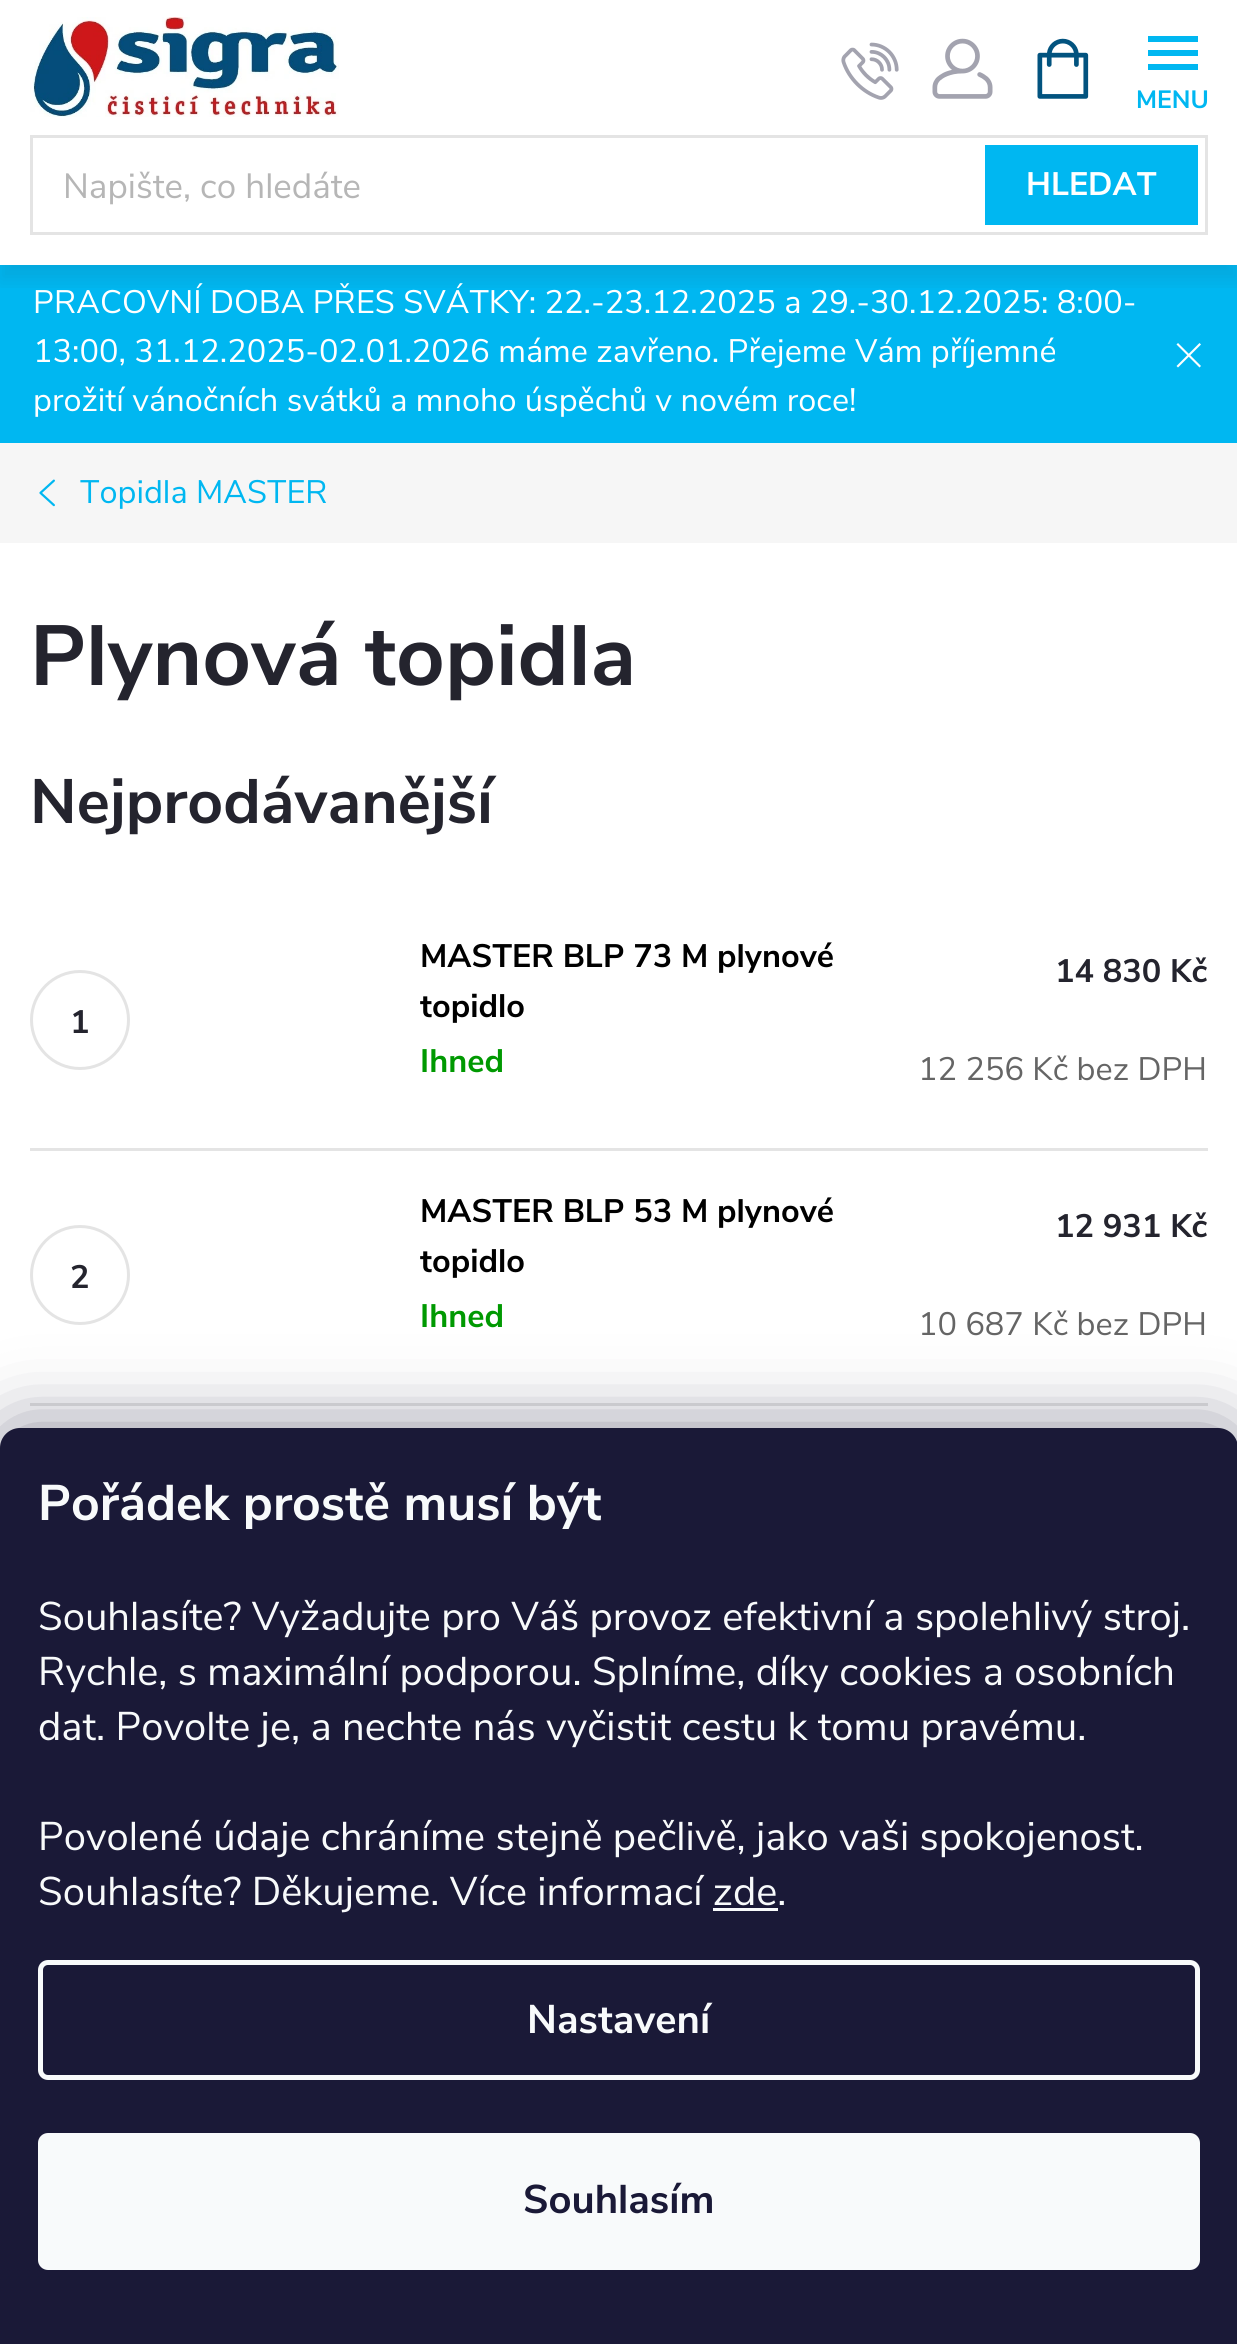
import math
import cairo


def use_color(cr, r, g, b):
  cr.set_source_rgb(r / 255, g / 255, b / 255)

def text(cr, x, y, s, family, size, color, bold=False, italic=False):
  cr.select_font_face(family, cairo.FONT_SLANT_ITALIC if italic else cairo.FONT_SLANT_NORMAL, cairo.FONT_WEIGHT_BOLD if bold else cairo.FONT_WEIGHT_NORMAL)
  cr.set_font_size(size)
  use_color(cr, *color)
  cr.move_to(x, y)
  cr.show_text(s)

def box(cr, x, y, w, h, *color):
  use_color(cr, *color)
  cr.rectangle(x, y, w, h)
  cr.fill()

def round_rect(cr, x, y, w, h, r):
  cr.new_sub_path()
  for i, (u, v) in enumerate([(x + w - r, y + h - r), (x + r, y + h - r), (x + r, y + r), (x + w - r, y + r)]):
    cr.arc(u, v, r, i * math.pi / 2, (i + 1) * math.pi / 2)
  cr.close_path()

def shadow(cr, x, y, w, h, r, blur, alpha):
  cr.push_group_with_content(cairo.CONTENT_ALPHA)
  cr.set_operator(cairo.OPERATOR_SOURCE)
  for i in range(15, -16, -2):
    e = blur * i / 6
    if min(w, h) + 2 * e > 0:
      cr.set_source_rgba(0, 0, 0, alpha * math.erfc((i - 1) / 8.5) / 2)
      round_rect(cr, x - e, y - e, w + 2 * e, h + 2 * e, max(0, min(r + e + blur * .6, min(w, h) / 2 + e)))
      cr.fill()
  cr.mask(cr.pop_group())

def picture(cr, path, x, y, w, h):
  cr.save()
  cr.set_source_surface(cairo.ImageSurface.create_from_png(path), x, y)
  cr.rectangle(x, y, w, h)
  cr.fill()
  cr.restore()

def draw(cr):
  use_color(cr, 255, 255, 255)
  cr.paint()
  picture(cr, "img_01.png", 841, 42, 58, 58)
  picture(cr, "img_02.png", 932, 38, 61, 61)
  use_color(cr, 0, 183, 241)
  cr.new_path()
  cr.move_to(1148, 70)
  cr.line_to(1198, 70)
  cr.line_to(1198, 64)
  cr.line_to(1148, 64)
  cr.close_path()
  cr.move_to(1148, 56)
  cr.line_to(1198, 56)
  cr.line_to(1198, 50)
  cr.line_to(1148, 50)
  cr.close_path()
  cr.move_to(1148, 36)
  cr.line_to(1148, 42)
  cr.line_to(1198, 42)
  cr.line_to(1198, 36)
  cr.close_path()
  cr.fill()
  box(cr, 0, 265, 1237, 178, 0, 183, 241)
  cr.save()
  cr.rectangle(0, 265, 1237, 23)
  cr.clip()
  use_color(cr, 36, 36, 46)
  shadow(cr, 0, 150, 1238, 130, 0, 10, 0.1)
  cr.restore()
  picture(cr, "img_03.png", 30, 17, 309, 100)
  picture(cr, "img_04.png", 1037, 38, 52, 61)
  cr.rectangle(31.5, 136.5, 1175, 97)
  use_color(cr, 228, 228, 228)
  cr.set_line_width(3)
  cr.stroke()
  box(cr, 985, 145, 213, 80, 0, 183, 241)
  use_color(cr, 255, 255, 255)
  cr.new_path()
  cr.move_to(1199.5, 343)
  cr.line_to(1201, 344.5)
  cr.line_to(1178, 367.5)
  cr.line_to(1176.5, 366)
  cr.close_path()
  cr.fill()
  cr.new_path()
  cr.move_to(1178, 343)
  cr.line_to(1201, 366)
  cr.line_to(1199.5, 367.5)
  cr.line_to(1176.5, 344.5)
  cr.close_path()
  cr.fill()
  box(cr, 0, 443, 1237, 100, 246, 246, 246)
  picture(cr, "img_05.png", 39, 479, 16, 28)
  box(cr, 30, 1148, 1178, 3, 228, 228, 228)
  cr.arc(80, 1020, 48.5, 0, 2 * math.pi)
  cr.stroke()
  box(cr, 30, 1403, 1178, 3, 228, 228, 228)
  cr.arc(80, 1275, 48.5, 0, 2 * math.pi)
  cr.stroke()
  use_color(cr, 27, 25, 57)
  shadow(cr, 0, 1428, 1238, 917, 20, 37.5, 0.5)
  use_color(cr, 26, 25, 55)
  cr.new_path()
  cr.move_to(20, 1428)
  cr.line_to(1218, 1428)
  cr.curve_to(1229, 1428, 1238, 1437, 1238, 1448)
  cr.line_to(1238, 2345)
  cr.line_to(0, 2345)
  cr.line_to(0, 1448)
  cr.curve_to(0, 1437, 9, 1428, 20, 1428)
  cr.close_path()
  cr.fill()
  box(cr, 713, 1908, 65, 3, 248, 250, 251)
  round_rect(cr, 40.5, 1962.5, 1157, 115, 7.5)
  cr.set_line_width(5)
  cr.stroke()
  round_rect(cr, 38, 2133, 1162, 137, 10)
  cr.fill()
  text(cr, 1136, 108, "MENU", "Nunito Sans", 25, (0, 183, 241), bold=True)
  text(cr, 63, 198, "Napište, co hledáte", "Nunito Sans", 35, (182, 182, 182))
  text(cr, 1026, 195, "HLEDAT", "Nunito Sans", 32.5, (255, 255, 255), bold=True)
  text(cr, 33, 313, "PRACOVNÍ DOBA PŘES SVÁTKY: 22.-23.12.2025 a 29.-30.12.2025: 8:00-", "Nunito Sans", 32.5, (255, 255, 255))
  text(cr, 33, 362, "13:00, 31.12.2025-02.01.2026 máme zavřeno. Přejeme Vám příjemné", "Nunito Sans", 32.5, (255, 255, 255))
  text(cr, 33, 411, "prožití vánočních svátků a mnoho úspěchů v novém roce!", "Nunito Sans", 32.5, (255, 255, 255))
  text(cr, 80, 503, "Topidla MASTER", "Nunito Sans", 32.5, (0, 183, 241))
  text(cr, 30, 685, "Plynová topidla", "Nunito Sans", 85, (36, 36, 46), bold=True)
  text(cr, 30, 823, "Nejprodávanější", "Nunito Sans", 62.5, (36, 36, 46), bold=True)
  text(cr, 70, 1033, "1", "Nunito Sans", 32.5, (36, 36, 46), bold=True)
  text(cr, 420, 967, "MASTER BLP 73 M plynové", "Nunito Sans", 32.5, (0, 0, 0), bold=True)
  text(cr, 420, 1017, "topidlo", "Nunito Sans", 32.5, (0, 0, 0), bold=True)
  text(cr, 420, 1072, "Ihned", "Nunito Sans", 32.5, (0, 153, 1), bold=True)
  text(cr, 1055, 982, "14 830 Kč", "Nunito Sans", 32.5, (36, 36, 46), bold=True)
  text(cr, 918, 1080, "12 256 Kč bez DPH", "Nunito Sans", 32.5, (101, 101, 101))
  text(cr, 70, 1288, "2", "Nunito Sans", 32.5, (36, 36, 46), bold=True)
  text(cr, 420, 1222, "MASTER BLP 53 M plynové", "Nunito Sans", 32.5, (0, 0, 0), bold=True)
  text(cr, 420, 1272, "topidlo", "Nunito Sans", 32.5, (0, 0, 0), bold=True)
  text(cr, 420, 1327, "Ihned", "Nunito Sans", 32.5, (0, 153, 1), bold=True)
  text(cr, 1055, 1237, "12 931 Kč", "Nunito Sans", 32.5, (36, 36, 46), bold=True)
  text(cr, 918, 1335, "10 687 Kč bez DPH", "Nunito Sans", 32.5, (101, 101, 101))
  text(cr, 38, 1520, "Pořádek prostě musí být", "Nunito Sans", 50, (248, 250, 251), bold=True)
  text(cr, 38, 1630, "Souhlasíte? Vyžadujte pro Váš provoz efektivní a spolehlivý stroj.", "Nunito Sans", 40, (248, 250, 251))
  text(cr, 38, 1685, "Rychle, s maximální podporou. Splníme, díky cookies a osobních", "Nunito Sans", 40, (248, 250, 251))
  text(cr, 38, 1740, "dat. Povolte je, a nechte nás vyčistit cestu k tomu pravému.", "Nunito Sans", 40, (248, 250, 251))
  text(cr, 38, 1850, "Povolené údaje chráníme stejně pečlivě, jako vaši spokojenost.", "Nunito Sans", 40, (248, 250, 251))
  text(cr, 38, 1905, "Souhlasíte? Děkujeme. Více informací zde.", "Nunito Sans", 40, (248, 250, 251))
  text(cr, 527, 2033, "Nastavení", "Nunito Sans", 40, (248, 250, 251), bold=True)
  text(cr, 523, 2213, "Souhlasím", "Nunito Sans", 40, (26, 25, 55), bold=True)


surface = cairo.ImageSurface(cairo.FORMAT_RGB24, 1237, 2344)
cr = cairo.Context(surface)
options = cairo.FontOptions()
options.set_hint_metrics(cairo.HINT_METRICS_OFF)
options.set_hint_style(cairo.HINT_STYLE_NONE)
cr.set_font_options(options)
cr.set_miter_limit(4)
draw(cr)
surface.write_to_png("out.png")
